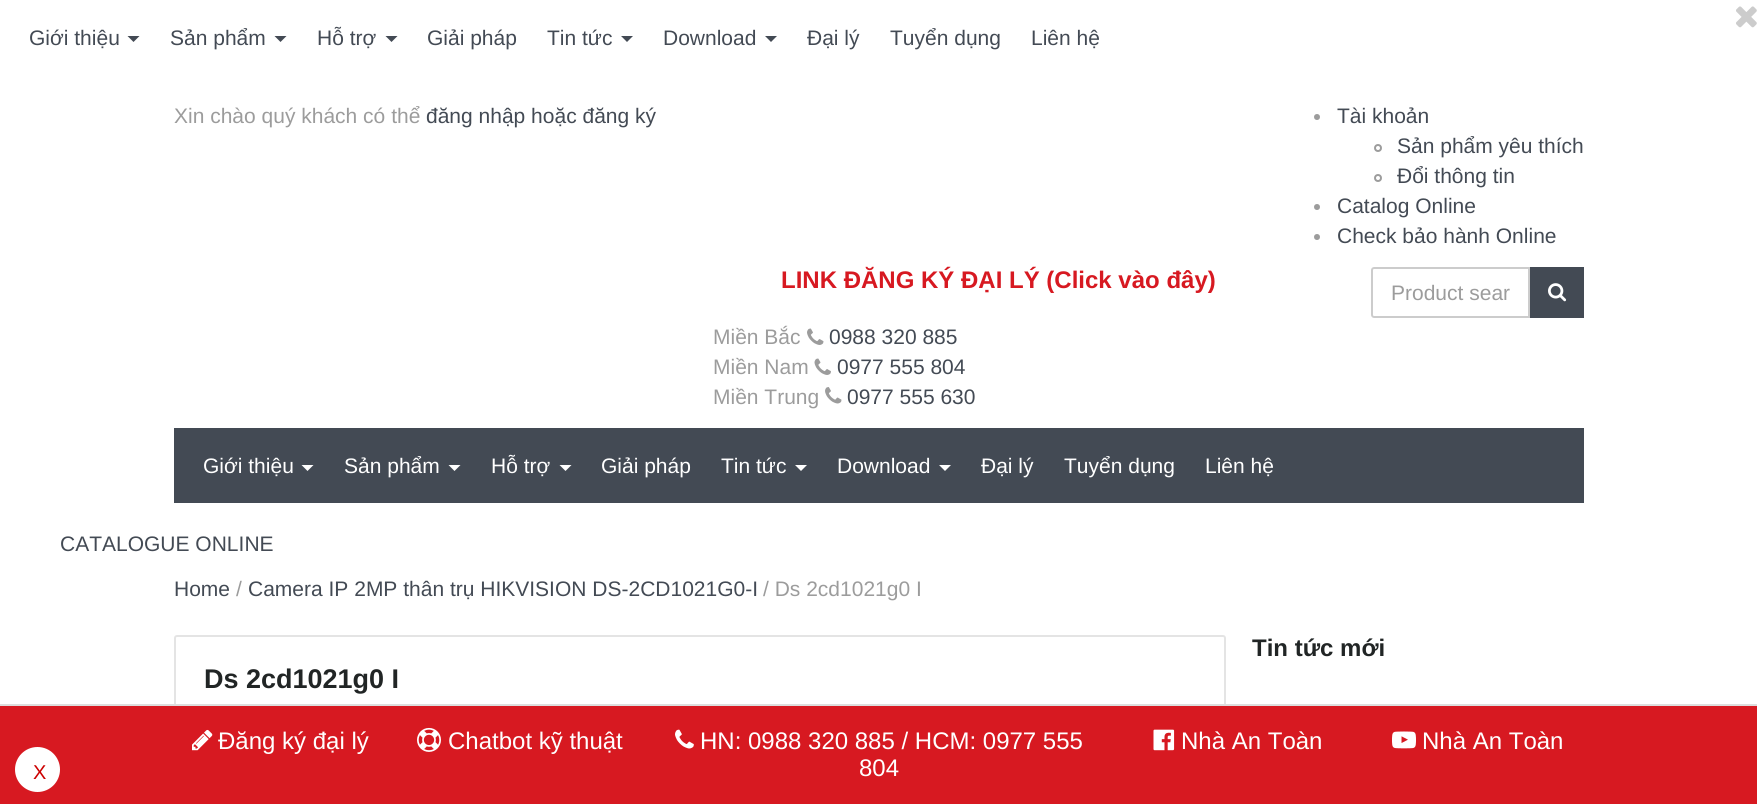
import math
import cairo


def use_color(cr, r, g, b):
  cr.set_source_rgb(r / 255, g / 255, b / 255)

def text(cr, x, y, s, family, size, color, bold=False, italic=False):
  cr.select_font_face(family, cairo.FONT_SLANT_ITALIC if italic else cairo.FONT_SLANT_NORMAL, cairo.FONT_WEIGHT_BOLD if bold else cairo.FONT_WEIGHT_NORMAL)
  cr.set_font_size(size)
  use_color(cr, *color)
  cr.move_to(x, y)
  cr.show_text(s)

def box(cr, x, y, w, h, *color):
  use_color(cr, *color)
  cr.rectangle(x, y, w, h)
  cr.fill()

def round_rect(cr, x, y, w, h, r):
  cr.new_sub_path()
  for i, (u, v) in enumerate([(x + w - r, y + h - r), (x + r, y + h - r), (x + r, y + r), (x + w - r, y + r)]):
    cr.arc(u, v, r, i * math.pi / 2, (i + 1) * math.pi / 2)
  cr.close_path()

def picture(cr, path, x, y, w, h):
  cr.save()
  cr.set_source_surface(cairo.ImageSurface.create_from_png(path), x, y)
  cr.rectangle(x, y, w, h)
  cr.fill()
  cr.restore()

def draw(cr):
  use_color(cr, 255, 255, 255)
  cr.paint()
  picture(cr, "img_01.png", 1736, 6, 21, 22)
  use_color(cr, 67, 74, 84)
  cr.new_path()
  cr.move_to(127.5, 36)
  cr.line_to(139.5, 36)
  cr.line_to(133.5, 42)
  cr.close_path()
  cr.fill()
  cr.new_path()
  cr.move_to(274.5, 36)
  cr.line_to(286.5, 36)
  cr.line_to(280.5, 42)
  cr.close_path()
  cr.fill()
  cr.new_path()
  cr.move_to(385.5, 36)
  cr.line_to(397.5, 36)
  cr.line_to(391.5, 42)
  cr.close_path()
  cr.fill()
  cr.new_path()
  cr.move_to(621, 36)
  cr.line_to(633, 36)
  cr.line_to(627, 42)
  cr.close_path()
  cr.fill()
  cr.new_path()
  cr.move_to(765, 36)
  cr.line_to(777, 36)
  cr.line_to(771, 42)
  cr.close_path()
  cr.fill()
  use_color(cr, 156, 156, 156)
  cr.arc(1317, 117, 3, 0, 2 * math.pi)
  cr.fill()
  cr.arc(1378, 148, 3, 0, 2 * math.pi)
  cr.stroke()
  cr.arc(1378, 178, 3, 0, 2 * math.pi)
  cr.stroke()
  cr.arc(1317, 207, 3, 0, 2 * math.pi)
  cr.fill()
  cr.arc(1317, 237, 3, 0, 2 * math.pi)
  cr.fill()
  picture(cr, "img_02.png", 807, 328, 17, 17)
  picture(cr, "img_03.png", 814, 358, 17, 17)
  picture(cr, "img_04.png", 825, 387, 17, 17)
  cr.new_path()
  cr.move_to(1374, 268)
  cr.line_to(1529, 268)
  cr.line_to(1529, 317)
  cr.line_to(1374, 317)
  cr.curve_to(1373, 317, 1372, 316, 1372, 315)
  cr.line_to(1372, 270)
  cr.curve_to(1372, 269, 1373, 268, 1374, 268)
  cr.close_path()
  use_color(cr, 204, 204, 204)
  cr.stroke()
  box(cr, 1530, 267, 54, 51, 67, 74, 84)
  picture(cr, "img_05.png", 1548, 283, 19, 19)
  box(cr, 174, 428, 1410, 75, 67, 74, 84)
  use_color(cr, 255, 255, 255)
  cr.new_path()
  cr.move_to(301.5, 465)
  cr.line_to(313.5, 465)
  cr.line_to(307.5, 471)
  cr.close_path()
  cr.fill()
  cr.new_path()
  cr.move_to(448.5, 465)
  cr.line_to(460.5, 465)
  cr.line_to(454.5, 471)
  cr.close_path()
  cr.fill()
  cr.new_path()
  cr.move_to(559.5, 465)
  cr.line_to(571.5, 465)
  cr.line_to(565.5, 471)
  cr.close_path()
  cr.fill()
  cr.new_path()
  cr.move_to(795, 465)
  cr.line_to(807, 465)
  cr.line_to(801, 471)
  cr.close_path()
  cr.fill()
  cr.new_path()
  cr.move_to(939, 465)
  cr.line_to(951, 465)
  cr.line_to(945, 471)
  cr.close_path()
  cr.fill()
  round_rect(cr, 175, 636, 1050, 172, 2)
  use_color(cr, 228, 228, 228)
  cr.stroke()
  box(cr, 0, 706, 1757, 98, 215, 25, 33)
  use_color(cr, 255, 255, 255)
  cr.arc(37.5, 769.5, 22.5, 0, 2 * math.pi)
  cr.fill()
  box(cr, 0, 704, 1757, 2, 221, 221, 221)
  picture(cr, "img_06.png", 192, 729, 21, 22)
  picture(cr, "img_07.png", 417, 727, 24, 25)
  picture(cr, "img_08.png", 675, 729, 19, 20)
  picture(cr, "img_09.png", 1153, 729, 22, 22)
  picture(cr, "img_10.png", 1392, 731, 24, 18)
  text(cr, 29, 45, "Giới thiệu", "Liberation Sans", 21, (67, 74, 84))
  text(cr, 170, 45, "Sản phẩm", "Liberation Sans", 21, (67, 74, 84))
  text(cr, 317, 45, "Hỗ trợ", "Liberation Sans", 21, (67, 74, 84))
  text(cr, 427, 45, "Giải pháp", "Liberation Sans", 21, (67, 74, 84))
  text(cr, 547, 45, "Tin tức", "Liberation Sans", 21, (67, 74, 84))
  text(cr, 663, 45, "Download", "Liberation Sans", 21, (67, 74, 84))
  text(cr, 807, 45, "Đại lý", "Liberation Sans", 21, (67, 74, 84))
  text(cr, 890, 45, "Tuyển dụng", "Liberation Sans", 21, (67, 74, 84))
  text(cr, 1031, 45, "Liên hệ", "Liberation Sans", 21, (67, 74, 84))
  text(cr, 174, 123, "Xin chào quý khách có thể", "Liberation Sans", 21, (156, 156, 156))
  text(cr, 426, 123, "đăng nhập hoặc đăng ký", "Liberation Sans", 21, (67, 74, 84))
  text(cr, 1337, 123, "Tài khoản", "Liberation Sans", 21, (67, 74, 84))
  text(cr, 1397, 153, "Sản phẩm yêu thích", "Liberation Sans", 21, (67, 74, 84))
  text(cr, 1397, 183, "Đổi thông tin", "Liberation Sans", 21, (67, 74, 84))
  text(cr, 1337, 213, "Catalog Online", "Liberation Sans", 21, (67, 74, 84))
  text(cr, 1337, 243, "Check bảo hành Online", "Liberation Sans", 21, (67, 74, 84))
  text(cr, 781, 288, "LINK ĐĂNG KÝ ĐẠI LÝ (Click vào đây)", "Liberation Sans", 24, (215, 25, 33), bold=True)
  text(cr, 713, 344, "Miền Bắc", "Liberation Sans", 21, (156, 156, 156))
  text(cr, 829, 344, "0988 320 885", "Liberation Sans", 21, (67, 74, 84))
  text(cr, 713, 374, "Miền Nam", "Liberation Sans", 21, (156, 156, 156))
  text(cr, 837, 374, "0977 555 804", "Liberation Sans", 21, (67, 74, 84))
  text(cr, 713, 404, "Miền Trung", "Liberation Sans", 21, (156, 156, 156))
  text(cr, 847, 404, "0977 555 630", "Liberation Sans", 21, (67, 74, 84))
  text(cr, 1391, 300, "Product sear", "Liberation Sans", 21, (156, 156, 156))
  text(cr, 203, 473, "Giới thiệu", "Liberation Sans", 21, (255, 255, 255))
  text(cr, 344, 473, "Sản phẩm", "Liberation Sans", 21, (255, 255, 255))
  text(cr, 491, 473, "Hỗ trợ", "Liberation Sans", 21, (255, 255, 255))
  text(cr, 601, 473, "Giải pháp", "Liberation Sans", 21, (255, 255, 255))
  text(cr, 721, 473, "Tin tức", "Liberation Sans", 21, (255, 255, 255))
  text(cr, 837, 473, "Download", "Liberation Sans", 21, (255, 255, 255))
  text(cr, 981, 473, "Đại lý", "Liberation Sans", 21, (255, 255, 255))
  text(cr, 1064, 473, "Tuyển dụng", "Liberation Sans", 21, (255, 255, 255))
  text(cr, 1205, 473, "Liên hệ", "Liberation Sans", 21, (255, 255, 255))
  text(cr, 60, 551, "CATALOGUE ONLINE", "Liberation Sans", 21, (67, 74, 84))
  text(cr, 174, 596, "Home", "Liberation Sans", 21, (67, 74, 84))
  text(cr, 236, 596, "/", "Liberation Sans", 21, (156, 156, 156))
  text(cr, 248, 596, "Camera IP 2MP thân trụ HIKVISION DS-2CD1021G0-I", "Liberation Sans", 21, (67, 74, 84))
  text(cr, 763, 596, "/ Ds 2cd1021g0 I", "Liberation Sans", 21, (156, 156, 156))
  text(cr, 1252, 656, "Tin tức mới", "Liberation Sans", 24, (33, 37, 37), bold=True)
  text(cr, 204, 688, "Ds 2cd1021g0 I", "Liberation Sans", 27, (33, 37, 37), bold=True)
  text(cr, 33, 779, "X", "Liberation Sans", 20, (204, 0, 0))
  text(cr, 218, 749, "Đăng ký đại lý", "Liberation Sans", 24, (255, 255, 255))
  text(cr, 448, 749, "Chatbot kỹ thuật", "Liberation Sans", 24, (255, 255, 255))
  text(cr, 700, 749, "HN: 0988 320 885 / HCM: 0977 555", "Liberation Sans", 24, (255, 255, 255))
  text(cr, 859, 776, "804", "Liberation Sans", 24, (255, 255, 255))
  text(cr, 1181, 749, "Nhà An Toàn", "Liberation Sans", 24, (255, 255, 255))
  text(cr, 1422, 749, "Nhà An Toàn", "Liberation Sans", 24, (255, 255, 255))


surface = cairo.ImageSurface(cairo.FORMAT_RGB24, 1757, 804)
cr = cairo.Context(surface)
options = cairo.FontOptions()
options.set_hint_metrics(cairo.HINT_METRICS_OFF)
options.set_hint_style(cairo.HINT_STYLE_NONE)
cr.set_font_options(options)
cr.set_miter_limit(4)
draw(cr)
surface.write_to_png("out.png")
